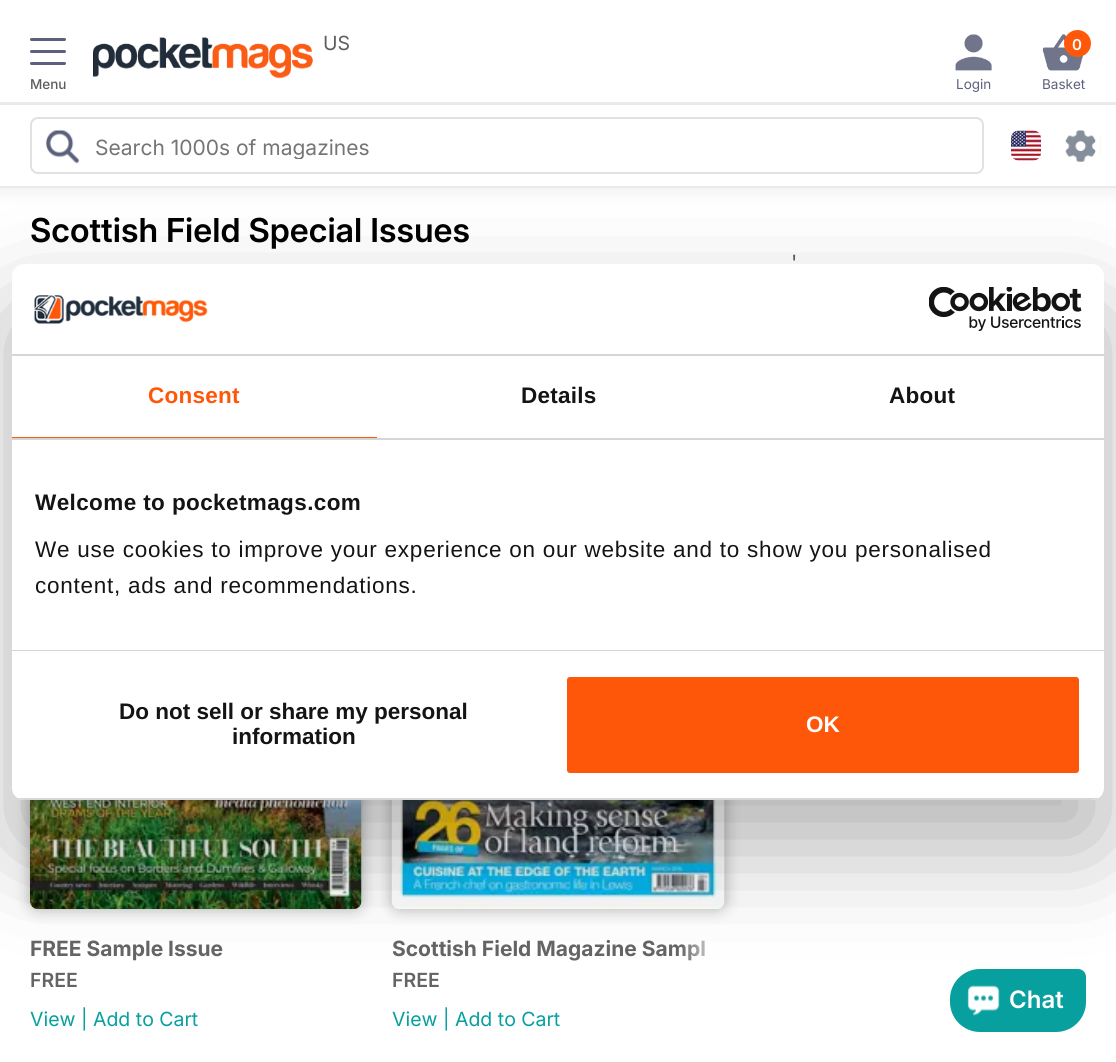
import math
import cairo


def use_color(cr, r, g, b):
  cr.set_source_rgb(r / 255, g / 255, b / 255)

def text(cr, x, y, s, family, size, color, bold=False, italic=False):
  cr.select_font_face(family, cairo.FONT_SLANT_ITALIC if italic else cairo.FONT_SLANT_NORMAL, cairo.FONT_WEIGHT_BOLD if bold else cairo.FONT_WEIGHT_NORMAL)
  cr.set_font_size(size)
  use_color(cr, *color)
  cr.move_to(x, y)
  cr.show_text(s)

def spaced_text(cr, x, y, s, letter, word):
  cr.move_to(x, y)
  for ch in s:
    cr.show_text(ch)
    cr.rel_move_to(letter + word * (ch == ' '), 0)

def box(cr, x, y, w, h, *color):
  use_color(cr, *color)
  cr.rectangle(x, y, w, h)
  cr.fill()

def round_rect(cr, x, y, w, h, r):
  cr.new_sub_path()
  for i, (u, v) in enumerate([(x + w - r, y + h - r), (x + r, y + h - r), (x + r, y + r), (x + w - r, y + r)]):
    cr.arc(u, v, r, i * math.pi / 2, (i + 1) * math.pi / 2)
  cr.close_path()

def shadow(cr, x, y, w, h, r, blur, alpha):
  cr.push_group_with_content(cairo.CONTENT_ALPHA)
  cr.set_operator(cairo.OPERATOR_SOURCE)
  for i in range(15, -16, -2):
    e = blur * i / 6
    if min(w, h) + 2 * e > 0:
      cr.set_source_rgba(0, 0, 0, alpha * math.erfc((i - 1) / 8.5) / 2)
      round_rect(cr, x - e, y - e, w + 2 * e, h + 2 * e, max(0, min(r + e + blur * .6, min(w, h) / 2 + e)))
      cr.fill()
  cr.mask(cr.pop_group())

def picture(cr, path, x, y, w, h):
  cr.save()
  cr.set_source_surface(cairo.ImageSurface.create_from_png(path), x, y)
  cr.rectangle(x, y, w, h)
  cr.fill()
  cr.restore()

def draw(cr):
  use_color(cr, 255, 255, 255)
  cr.paint()
  use_color(cr, 0, 0, 0)
  shadow(cr, -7, -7, 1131, 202, 0, 7.5, 0.05)
  box(cr, 0, 0, 1116, 186, 255, 255, 255)
  box(cr, 0, 102, 1116, 3, 234, 234, 234)
  use_color(cr, 92, 96, 124)
  round_rect(cr, 30, 38, 36, 3, 1.5)
  cr.fill()
  round_rect(cr, 30, 50, 36, 3, 1.5)
  cr.fill()
  round_rect(cr, 30, 62, 36, 3, 1.5)
  cr.fill()
  picture(cr, "img_01.png", 93, 37, 220, 42)
  picture(cr, "img_02.png", 955, 34, 37, 37)
  picture(cr, "img_03.png", 1042, 34, 41, 37)
  use_color(cr, 255, 88, 10)
  cr.arc(1077.5, 43.5, 13.5, 0, 2 * math.pi)
  cr.fill()
  box(cr, 0, 186, 1116, 2, 234, 234, 234)
  round_rect(cr, 31, 118, 952, 55, 7)
  use_color(cr, 225, 225, 225)
  cr.stroke()
  picture(cr, "img_04.png", 45, 130, 35, 34)
  picture(cr, "img_05.png", 1011, 130, 30, 31)
  picture(cr, "img_06.png", 1065, 130, 36, 32)
  use_color(cr, 0, 0, 0)
  shadow(cr, 30, 440, 332, 469, 8, 7.5, 0.3)
  picture(cr, "img_07.png", 30, 800, 332, 109)
  shadow(cr, 392, 440, 333, 469, 8, 7.5, 0.3)
  picture(cr, "img_08.png", 391, 800, 334, 109)
  use_color(cr, 7, 160, 158)
  cr.new_path()
  cr.move_to(980, 969)
  cr.line_to(1078, 969)
  cr.curve_to(1082.5, 969, 1086, 972.5, 1086, 977)
  cr.line_to(1086, 1002)
  cr.curve_to(1086, 1018.5, 1072.5, 1032, 1056, 1032)
  cr.line_to(980, 1032)
  cr.curve_to(963.5, 1032, 950, 1018.5, 950, 1002)
  cr.line_to(950, 999)
  cr.curve_to(950, 982.5, 963.5, 969, 980, 969)
  cr.close_path()
  cr.fill()
  picture(cr, "img_09.png", 967, 985, 33, 31)
  text(cr, 30, 89, "Menu", "Inter Medium", 13.5, (92, 92, 92))
  text(cr, 323, 50, "US", "Inter", 19.5, (92, 92, 92))
  text(cr, 956, 89, "Login", "Inter", 13.5, (92, 96, 124))
  text(cr, 1072, 50, "0", "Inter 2 SemiBold", 15, (255, 255, 255))
  text(cr, 1042, 89, "Basket", "Inter", 13.5, (92, 96, 124))
  cr.save()
  cr.rectangle(95, 134, 876, 25)
  cr.clip()
  text(cr, 95, 155, "Search 1000s of magazines", "Inter", 21, (117, 117, 117))
  cr.restore()
  text(cr, 30, 242, "Scottish Field Special Issues", "Inter SemiBold", 33, (0, 0, 0))
  text(cr, 791, 270, "'", "Inter", 21, (92, 92, 92))
  text(cr, 30, 956, "FREE Sample Issue", "Inter", 21, (100, 100, 100), bold=True)
  text(cr, 30, 987, "FREE", "Inter 2 SemiBold", 19.5, (100, 100, 100))
  text(cr, 30, 1026, "View | Add to Cart", "Inter", 19.5, (7, 159, 159))
  text(cr, 392, 956, "Scottish Field Magazine Sampl", "Inter", 21, (100, 100, 100), bold=True)
  gradient = cairo.LinearGradient(725, 947, 680, 947)
  gradient.add_color_stop_rgba(0, 1, 1, 1, 1)
  gradient.add_color_stop_rgba(1, 1, 1, 1, 0)
  cr.set_source(gradient)
  cr.rectangle(681, 940, 24, 21)
  cr.fill()
  text(cr, 392, 987, "FREE", "Inter 2 SemiBold", 19.5, (100, 100, 100))
  text(cr, 392, 1026, "View | Add to Cart", "Inter", 19.5, (7, 159, 159))
  text(cr, 1009, 1008, "Chat", "Inter 2 SemiBold", 24, (255, 255, 255))
  use_color(cr, 0, 0, 0)
  shadow(cr, 12, 312, 1092, 536, 12, 51, 0.3)
  use_color(cr, 255, 255, 255)
  round_rect(cr, 12, 264, 1092, 536, 12)
  cr.fill()
  box(cr, 12, 354, 1092, 2, 214, 214, 214)
  picture(cr, "img_10.png", 34, 295, 174, 29)
  picture(cr, "img_11.png", 929, 287, 153, 44)
  box(cr, 12, 438, 1092, 2, 214, 214, 214)
  box(cr, 12, 437, 365, 1, 255, 87, 9)
  cr.select_font_face("Liberation Sans", cairo.FONT_SLANT_NORMAL, cairo.FONT_WEIGHT_BOLD)
  cr.set_font_size(22.5)
  spaced_text(cr, 148, 403, "Consent", 0.25, 0)
  use_color(cr, 20, 20, 20)
  spaced_text(cr, 521, 403, "Details", 0.25, 0)
  spaced_text(cr, 889, 403, "About", 0.25, 0)
  box(cr, 12, 650, 1092, 1, 214, 214, 214)
  use_color(cr, 20, 20, 20)
  spaced_text(cr, 35, 510, "Welcome to pocketmags.com", 0.4, 0)
  cr.select_font_face("Liberation Sans")
  spaced_text(cr, 35, 557, "We use cookies to improve your experience on our website and to show you personalised", 0.75, 0)
  spaced_text(cr, 35, 593, "content, ads and recommendations.", 0.75, 0)
  cr.save()
  round_rect(cr, 12, 264, 1092, 536, 12)
  cr.clip()
  box(cr, 12, 798, 1092, 2, 214, 214, 214)
  cr.restore()
  text(cr, 119, 719, "Do not sell or share my personal", "Liberation Sans", 22.5, (20, 20, 20), bold=True)
  text(cr, 232, 744, "information", "Liberation Sans", 22.5, (20, 20, 20), bold=True)
  use_color(cr, 255, 87, 9)
  round_rect(cr, 565.5, 675.5, 515, 99, 4.5)
  cr.fill_preserve()
  use_color(cr, 255, 255, 255)
  cr.set_line_width(3)
  cr.stroke()
  text(cr, 806, 732, "OK", "Liberation Sans", 22.5, (255, 255, 255), bold=True)


surface = cairo.ImageSurface(cairo.FORMAT_RGB24, 1116, 1062)
cr = cairo.Context(surface)
options = cairo.FontOptions()
options.set_hint_metrics(cairo.HINT_METRICS_OFF)
options.set_hint_style(cairo.HINT_STYLE_NONE)
cr.set_font_options(options)
cr.set_miter_limit(4)
draw(cr)
surface.write_to_png("out.png")
